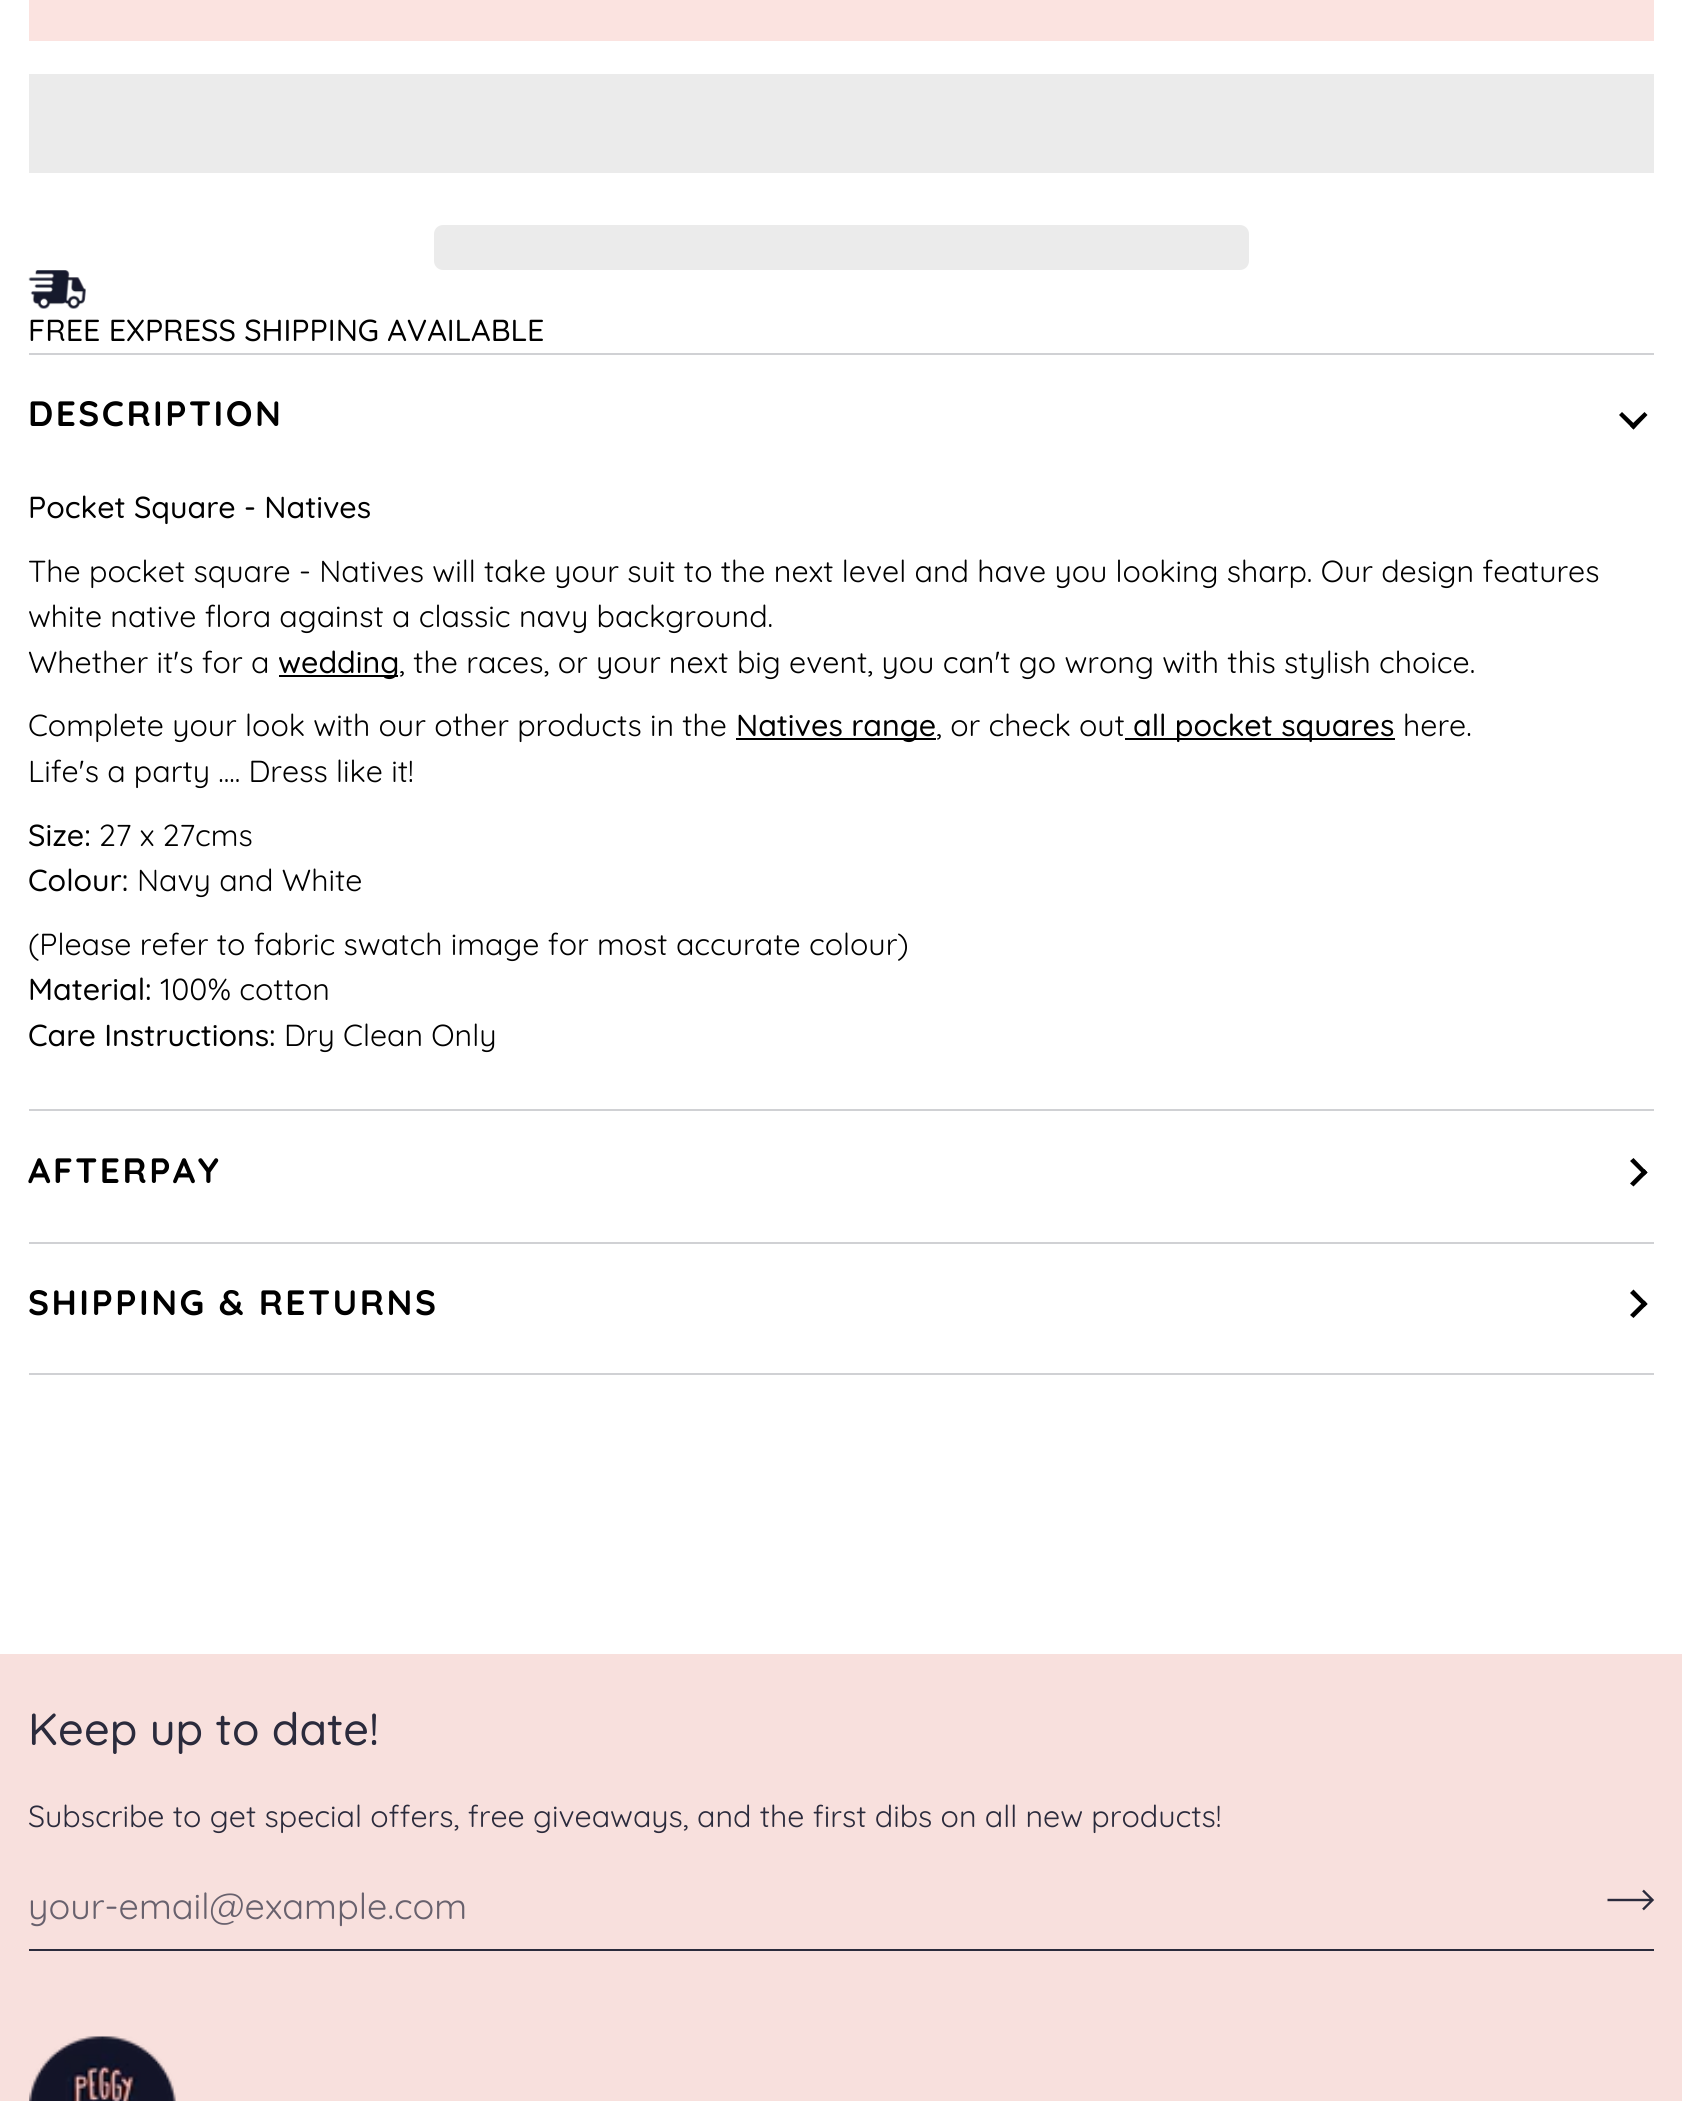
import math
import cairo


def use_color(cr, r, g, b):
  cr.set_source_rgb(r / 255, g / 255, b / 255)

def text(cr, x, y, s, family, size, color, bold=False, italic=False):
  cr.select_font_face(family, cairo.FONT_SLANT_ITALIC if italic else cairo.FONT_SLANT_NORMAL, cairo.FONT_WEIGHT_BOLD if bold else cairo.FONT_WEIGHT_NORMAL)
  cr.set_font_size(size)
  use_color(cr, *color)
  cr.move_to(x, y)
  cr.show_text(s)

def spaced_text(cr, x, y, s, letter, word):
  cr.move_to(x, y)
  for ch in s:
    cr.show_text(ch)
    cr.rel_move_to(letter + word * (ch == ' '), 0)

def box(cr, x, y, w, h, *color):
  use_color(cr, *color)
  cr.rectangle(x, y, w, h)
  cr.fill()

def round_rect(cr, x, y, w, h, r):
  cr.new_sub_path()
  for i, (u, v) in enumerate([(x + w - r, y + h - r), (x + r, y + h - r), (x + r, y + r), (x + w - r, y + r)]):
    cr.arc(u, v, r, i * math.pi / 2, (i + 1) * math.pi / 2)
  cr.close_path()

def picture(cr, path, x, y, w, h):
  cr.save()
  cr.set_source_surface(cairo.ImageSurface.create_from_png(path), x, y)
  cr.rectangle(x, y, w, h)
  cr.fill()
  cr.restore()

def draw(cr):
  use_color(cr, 255, 255, 255)
  cr.paint()
  box(cr, 29, 0, 1625, 41, 251, 227, 224)
  box(cr, 29, 74, 1625, 99, 235, 235, 235)
  round_rect(cr, 434, 225, 815, 45, 9)
  cr.fill()
  picture(cr, "img_01.png", 28, 270, 58, 39)
  box(cr, 29, 353, 1625, 2, 208, 209, 212)
  box(cr, 29, 1109, 1625, 2, 208, 209, 212)
  use_color(cr, 0, 0, 0)
  cr.new_path()
  cr.move_to(1630, 426)
  cr.line_to(1644.5, 412)
  cr.line_to(1647.5, 415)
  cr.line_to(1633.5, 429.5)
  cr.close_path()
  cr.fill()
  cr.new_path()
  cr.move_to(1619, 415)
  cr.line_to(1622, 412)
  cr.line_to(1636.5, 426)
  cr.line_to(1633.5, 429.5)
  cr.close_path()
  cr.fill()
  box(cr, 279, 675, 119, 2, 0, 0, 0)
  box(cr, 736, 738, 200, 2, 0, 0, 0)
  box(cr, 1125, 738, 270, 2, 0, 0, 0)
  box(cr, 29, 1242, 1625, 2, 208, 209, 212)
  use_color(cr, 0, 0, 0)
  cr.new_path()
  cr.move_to(1644.5, 1175.5)
  cr.line_to(1630, 1161)
  cr.line_to(1633.5, 1158)
  cr.line_to(1647.5, 1172.5)
  cr.close_path()
  cr.fill()
  cr.new_path()
  cr.move_to(1633.5, 1186.5)
  cr.line_to(1630, 1183.5)
  cr.line_to(1644.5, 1169)
  cr.line_to(1647.5, 1172.5)
  cr.close_path()
  cr.fill()
  box(cr, 29, 1373, 1625, 2, 208, 209, 212)
  use_color(cr, 0, 0, 0)
  cr.new_path()
  cr.move_to(1644.5, 1307)
  cr.line_to(1630, 1293)
  cr.line_to(1633.5, 1289.5)
  cr.line_to(1647.5, 1304)
  cr.close_path()
  cr.fill()
  cr.new_path()
  cr.move_to(1633.5, 1318)
  cr.line_to(1630, 1315)
  cr.line_to(1644.5, 1300.5)
  cr.line_to(1647.5, 1304)
  cr.close_path()
  cr.fill()
  box(cr, 0, 1654, 1682, 447, 248, 224, 221)
  box(cr, 29, 1949, 1625, 2, 43, 43, 60)
  cr.new_path()
  cr.move_to(1643, 1890.5)
  cr.line_to(1652.5, 1900)
  cr.line_to(1643, 1909.5)
  cr.move_to(1607.5, 1900)
  cr.line_to(1652.5, 1900)
  cr.set_line_width(2.4)
  cr.stroke()
  picture(cr, "img_02.png", 29, 2036, 147, 65)
  text(cr, 28, 341, "FREE EXPRESS SHIPPING AVAILABLE", "Quicksand Medium", 30.38, (0, 0, 0))
  cr.select_font_face("Quicksand", cairo.FONT_SLANT_NORMAL, cairo.FONT_WEIGHT_BOLD)
  cr.set_font_size(35.2)
  spaced_text(cr, 28, 426, "DESCRIPTION", 2.5, 0)
  text(cr, 28, 518, "Pocket Square - Natives", "Quicksand Medium", 30.38, (0, 0, 0))
  text(cr, 28, 582, "The pocket square - Natives will take your suit to the next level and have you looking sharp. Our design features", "Quicksand", 30.38, (0, 0, 0))
  text(cr, 28, 627, "white native flora against a classic navy background.", "Quicksand", 30.38, (0, 0, 0))
  text(cr, 28, 673, "Whether it's for a", "Quicksand", 30.38, (0, 0, 0))
  text(cr, 278, 673, "wedding", "Quicksand Medium", 30.38, (0, 0, 0))
  text(cr, 399, 673, ", the races, or your next big event, you can't go wrong with this stylish choice.", "Quicksand", 30.38, (0, 0, 0))
  text(cr, 28, 736, "Complete your look with our other products in the", "Quicksand", 30.38, (0, 0, 0))
  text(cr, 736, 736, "Natives range", "Quicksand Medium", 30.38, (0, 0, 0))
  text(cr, 936, 736, ", or check out", "Quicksand", 30.38, (0, 0, 0))
  text(cr, 1133, 736, "all pocket squares", "Quicksand Medium", 30.38, (0, 0, 0))
  text(cr, 1403, 736, "here.", "Quicksand", 30.38, (0, 0, 0))
  text(cr, 28, 782, "Life's a party .... Dress like it!", "Quicksand", 30.38, (0, 0, 0))
  text(cr, 28, 846, "Size:", "Quicksand Medium", 30.38, (0, 0, 0))
  text(cr, 99, 846, "27 x 27cms", "Quicksand", 30.38, (0, 0, 0))
  text(cr, 28, 891, "Colour:", "Quicksand Medium", 30.38, (0, 0, 0))
  text(cr, 137, 891, "Navy and White", "Quicksand", 30.38, (0, 0, 0))
  text(cr, 28, 955, "(Please refer to fabric swatch image for most accurate colour)", "Quicksand", 30.38, (0, 0, 0))
  text(cr, 28, 1000, "Material:", "Quicksand Medium", 30.38, (0, 0, 0))
  text(cr, 160, 1000, "100% cotton", "Quicksand", 30.38, (0, 0, 0))
  text(cr, 28, 1046, "Care Instructions:", "Quicksand Medium", 30.38, (0, 0, 0))
  text(cr, 284, 1046, "Dry Clean Only", "Quicksand", 30.38, (0, 0, 0))
  cr.select_font_face("Quicksand", cairo.FONT_SLANT_NORMAL, cairo.FONT_WEIGHT_BOLD)
  cr.set_font_size(35.2)
  spaced_text(cr, 28, 1183, "AFTERPAY", 2.5, 0)
  spaced_text(cr, 28, 1315, "SHIPPING & RETURNS", 2.5, 0)
  text(cr, 28, 1745, "Keep up to date!", "Quicksand Medium", 45, (43, 43, 60))
  text(cr, 28, 1827, "Subscribe to get special offers, free giveaways, and the first dibs on all new products!", "Quicksand", 30.38, (43, 43, 60))
  text(cr, 28, 1919, "your-email@example.com", "Quicksand", 36, (104, 97, 109))


surface = cairo.ImageSurface(cairo.FORMAT_RGB24, 1682, 2101)
cr = cairo.Context(surface)
options = cairo.FontOptions()
options.set_hint_metrics(cairo.HINT_METRICS_OFF)
options.set_hint_style(cairo.HINT_STYLE_NONE)
cr.set_font_options(options)
cr.set_miter_limit(4)
draw(cr)
surface.write_to_png("out.png")
